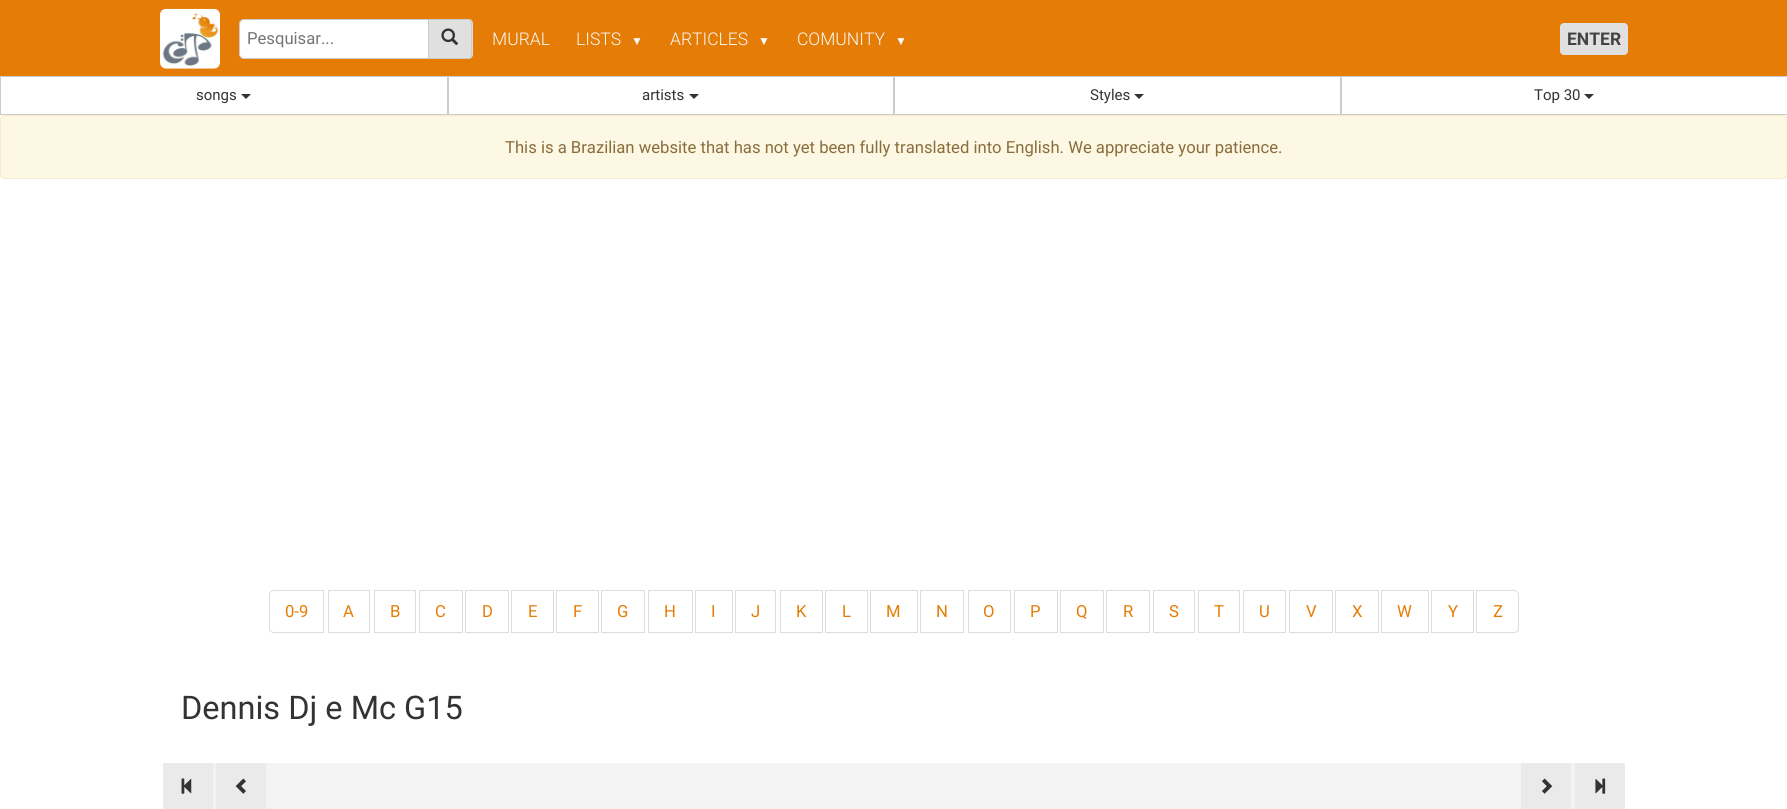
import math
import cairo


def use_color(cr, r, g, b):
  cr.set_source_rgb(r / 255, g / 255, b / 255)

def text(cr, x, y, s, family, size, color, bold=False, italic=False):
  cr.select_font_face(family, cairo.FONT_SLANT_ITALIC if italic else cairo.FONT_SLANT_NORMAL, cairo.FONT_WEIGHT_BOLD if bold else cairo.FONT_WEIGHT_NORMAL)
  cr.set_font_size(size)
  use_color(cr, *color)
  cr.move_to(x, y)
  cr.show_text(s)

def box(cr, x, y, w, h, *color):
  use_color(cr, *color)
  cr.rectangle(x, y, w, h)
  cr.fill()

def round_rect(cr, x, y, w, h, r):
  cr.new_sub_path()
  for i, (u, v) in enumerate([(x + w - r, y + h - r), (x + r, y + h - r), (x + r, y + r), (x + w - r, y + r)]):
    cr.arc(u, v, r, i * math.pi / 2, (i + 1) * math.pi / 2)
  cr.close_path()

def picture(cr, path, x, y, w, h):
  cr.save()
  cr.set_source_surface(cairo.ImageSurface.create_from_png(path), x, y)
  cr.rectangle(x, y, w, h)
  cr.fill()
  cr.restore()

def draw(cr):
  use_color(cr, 255, 255, 255)
  cr.paint()
  box(cr, 0, 0, 1787, 76, 229, 124, 6)
  picture(cr, "img_01.png", 160, 8, 60, 61)
  use_color(cr, 255, 255, 255)
  cr.new_path()
  cr.move_to(244, 19.5)
  cr.line_to(428.5, 19.5)
  cr.line_to(428.5, 58.5)
  cr.line_to(244, 58.5)
  cr.curve_to(241.5, 58.5, 239.5, 56.5, 239.5, 54)
  cr.line_to(239.5, 24)
  cr.curve_to(239.5, 21.5, 241.5, 19.5, 244, 19.5)
  cr.close_path()
  cr.fill_preserve()
  use_color(cr, 204, 204, 204)
  cr.set_line_width(1)
  cr.stroke()
  use_color(cr, 224, 224, 224)
  cr.new_path()
  cr.move_to(429, 19)
  cr.line_to(468, 19)
  cr.curve_to(471, 19, 473, 21, 473, 24)
  cr.line_to(473, 54)
  cr.curve_to(473, 57, 471, 59, 468, 59)
  cr.line_to(429, 59)
  cr.close_path()
  cr.fill()
  use_color(cr, 204, 204, 204)
  cr.set_fill_rule(cairo.FILL_RULE_EVEN_ODD)
  cr.new_path()
  cr.move_to(429, 19)
  cr.line_to(468, 19)
  cr.curve_to(470, 19, 472, 21, 472, 24)
  cr.line_to(472, 54)
  cr.curve_to(472, 57, 470, 59, 468, 59)
  cr.line_to(429, 59)
  cr.close_path()
  cr.move_to(429, 20)
  cr.line_to(468, 20)
  cr.curve_to(470, 20, 471, 22, 471, 24)
  cr.line_to(471, 54)
  cr.curve_to(471, 56, 470, 58, 468, 58)
  cr.line_to(429, 58)
  cr.close_path()
  cr.fill()
  picture(cr, "img_02.png", 441, 28, 17, 18)
  use_color(cr, 224, 224, 224)
  round_rect(cr, 1560, 23, 68, 32, 4)
  cr.fill()
  cr.rectangle(0.5, 76.5, 447, 38)
  use_color(cr, 204, 204, 204)
  cr.stroke()
  use_color(cr, 51, 51, 51)
  cr.set_fill_rule(cairo.FILL_RULE_WINDING)
  cr.new_path()
  cr.move_to(241, 94)
  cr.line_to(251, 94)
  cr.line_to(246, 99)
  cr.close_path()
  cr.fill()
  cr.rectangle(448.5, 76.5, 445, 38)
  use_color(cr, 204, 204, 204)
  cr.stroke()
  use_color(cr, 51, 51, 51)
  cr.new_path()
  cr.move_to(689, 94)
  cr.line_to(699, 94)
  cr.line_to(694, 99)
  cr.close_path()
  cr.fill()
  cr.rectangle(894.5, 76.5, 446, 38)
  use_color(cr, 204, 204, 204)
  cr.stroke()
  use_color(cr, 51, 51, 51)
  cr.new_path()
  cr.move_to(1134, 94)
  cr.line_to(1144, 94)
  cr.line_to(1139, 99)
  cr.close_path()
  cr.fill()
  cr.rectangle(1341.5, 76.5, 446, 38)
  use_color(cr, 204, 204, 204)
  cr.stroke()
  use_color(cr, 51, 51, 51)
  cr.new_path()
  cr.move_to(1584, 94)
  cr.line_to(1594, 94)
  cr.line_to(1589, 99)
  cr.close_path()
  cr.fill()
  use_color(cr, 252, 248, 227)
  round_rect(cr, 0.5, 115.5, 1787, 63, 4.5)
  cr.fill_preserve()
  use_color(cr, 250, 235, 204)
  cr.stroke()
  cr.new_path()
  cr.move_to(274, 590.5)
  cr.line_to(323.5, 590.5)
  cr.line_to(323.5, 632.5)
  cr.line_to(274, 632.5)
  cr.curve_to(271.5, 632.5, 269.5, 630.5, 269.5, 628)
  cr.line_to(269.5, 595)
  cr.curve_to(269.5, 592.5, 271.5, 590.5, 274, 590.5)
  cr.close_path()
  use_color(cr, 221, 221, 221)
  cr.stroke()
  cr.rectangle(328.5, 590.5, 41, 42)
  cr.stroke()
  cr.rectangle(374.5, 590.5, 41, 42)
  cr.stroke()
  cr.rectangle(419.5, 590.5, 43, 42)
  cr.stroke()
  cr.rectangle(465.5, 590.5, 43, 42)
  cr.stroke()
  cr.rectangle(511.5, 590.5, 42, 42)
  cr.stroke()
  cr.rectangle(556.5, 590.5, 42, 42)
  cr.stroke()
  cr.rectangle(601.5, 590.5, 43, 42)
  cr.stroke()
  cr.rectangle(648.5, 590.5, 44, 42)
  cr.stroke()
  cr.rectangle(695.5, 590.5, 37, 42)
  cr.stroke()
  cr.rectangle(735.5, 590.5, 40, 42)
  cr.stroke()
  cr.rectangle(780.5, 590.5, 42, 42)
  cr.stroke()
  cr.rectangle(825.5, 590.5, 42, 42)
  cr.stroke()
  cr.rectangle(870.5, 590.5, 47, 42)
  cr.stroke()
  cr.rectangle(920.5, 590.5, 43, 42)
  cr.stroke()
  cr.rectangle(968.5, 590.5, 42, 42)
  cr.stroke()
  cr.rectangle(1014.5, 590.5, 43, 42)
  cr.stroke()
  cr.rectangle(1060.5, 590.5, 43, 42)
  cr.stroke()
  cr.rectangle(1106.5, 590.5, 43, 42)
  cr.stroke()
  cr.rectangle(1153.5, 590.5, 41, 42)
  cr.stroke()
  cr.rectangle(1198.5, 590.5, 41, 42)
  cr.stroke()
  cr.rectangle(1243.5, 590.5, 42, 42)
  cr.stroke()
  cr.rectangle(1289.5, 590.5, 43, 42)
  cr.stroke()
  cr.rectangle(1335.5, 590.5, 43, 42)
  cr.stroke()
  cr.rectangle(1381.5, 590.5, 47, 42)
  cr.stroke()
  cr.rectangle(1431.5, 590.5, 42, 42)
  cr.stroke()
  cr.new_path()
  cr.move_to(1476.5, 590.5)
  cr.line_to(1514, 590.5)
  cr.curve_to(1516.5, 590.5, 1518.5, 592.5, 1518.5, 595)
  cr.line_to(1518.5, 628)
  cr.curve_to(1518.5, 630.5, 1516.5, 632.5, 1514, 632.5)
  cr.line_to(1476.5, 632.5)
  cr.close_path()
  cr.stroke()
  box(cr, 213, 763, 1362, 46, 243, 243, 243)
  box(cr, 163, 763, 50, 46, 234, 234, 234)
  picture(cr, "img_03.png", 181, 778, 11, 16)
  box(cr, 216, 763, 50, 46, 234, 234, 234)
  picture(cr, "img_04.png", 235, 778, 11, 16)
  box(cr, 1521, 763, 50, 46, 234, 234, 234)
  picture(cr, "img_05.png", 1542, 778, 11, 16)
  box(cr, 1575, 763, 50, 46, 234, 234, 234)
  picture(cr, "img_06.png", 1595, 778, 11, 16)
  text(cr, 247, 44, "Pesquisar...", "Roboto", 16.65, (117, 117, 117))
  text(cr, 492, 45, "MURAL", "Roboto Light", 17.5, (249, 249, 249))
  text(cr, 576, 45, "LISTS", "Roboto Light", 17.5, (249, 249, 249))
  text(cr, 631, 45, "▼", "Liberation Sans", 12, (249, 249, 249))
  text(cr, 670, 45, "ARTICLES", "Roboto Light", 17.5, (249, 249, 249))
  text(cr, 758, 45, "▼", "Liberation Sans", 12, (249, 249, 249))
  text(cr, 797, 45, "COMUNITY", "Roboto Light", 17.5, (249, 249, 249))
  text(cr, 895, 45, "▼", "Liberation Sans", 12, (249, 249, 249))
  text(cr, 1567, 45, "ENTER", "Roboto", 17.5, (67, 67, 67), bold=True)
  text(cr, 196, 100, "songs", "Roboto", 15, (51, 51, 51))
  text(cr, 642, 100, "artists", "Roboto", 15, (51, 51, 51))
  text(cr, 1090, 100, "Styles", "Roboto", 15, (51, 51, 51))
  text(cr, 1534, 100, "Top 30", "Roboto", 15, (51, 51, 51))
  text(cr, 505, 153, "This is a Brazilian website that has not yet been fully translated into English. We appreciate your patience.", "Roboto", 16.65, (138, 109, 59))
  text(cr, 285, 617, "0-9", "Roboto", 16.65, (229, 124, 6))
  text(cr, 343, 617, "A", "Roboto", 16.65, (229, 124, 6))
  text(cr, 390, 617, "B", "Roboto", 16.65, (229, 124, 6))
  text(cr, 435, 617, "C", "Roboto", 16.65, (229, 124, 6))
  text(cr, 482, 617, "D", "Roboto", 16.65, (229, 124, 6))
  text(cr, 528, 617, "E", "Roboto", 16.65, (229, 124, 6))
  text(cr, 573, 617, "F", "Roboto", 16.65, (229, 124, 6))
  text(cr, 617, 617, "G", "Roboto", 16.65, (229, 124, 6))
  text(cr, 664, 617, "H", "Roboto", 16.65, (229, 124, 6))
  text(cr, 711, 617, "I", "Roboto", 16.65, (229, 124, 6))
  text(cr, 751, 617, "J", "Roboto", 16.65, (229, 124, 6))
  text(cr, 796, 617, "K", "Roboto", 16.65, (229, 124, 6))
  text(cr, 842, 617, "L", "Roboto", 16.65, (229, 124, 6))
  text(cr, 886, 617, "M", "Roboto", 16.65, (229, 124, 6))
  text(cr, 936, 617, "N", "Roboto", 16.65, (229, 124, 6))
  text(cr, 983, 617, "O", "Roboto", 16.65, (229, 124, 6))
  text(cr, 1030, 617, "P", "Roboto", 16.65, (229, 124, 6))
  text(cr, 1076, 617, "Q", "Roboto", 16.65, (229, 124, 6))
  text(cr, 1123, 617, "R", "Roboto", 16.65, (229, 124, 6))
  text(cr, 1169, 617, "S", "Roboto", 16.65, (229, 124, 6))
  text(cr, 1214, 617, "T", "Roboto", 16.65, (229, 124, 6))
  text(cr, 1259, 617, "U", "Roboto", 16.65, (229, 124, 6))
  text(cr, 1306, 617, "V", "Roboto", 16.65, (229, 124, 6))
  text(cr, 1352, 617, "X", "Roboto", 16.65, (229, 124, 6))
  text(cr, 1397, 617, "W", "Roboto", 16.65, (229, 124, 6))
  text(cr, 1448, 617, "Y", "Roboto", 16.65, (229, 124, 6))
  text(cr, 1493, 617, "Z", "Roboto", 16.65, (229, 124, 6))
  text(cr, 181, 719, "Dennis Dj e Mc G15", "Roboto", 32.5, (51, 51, 51))


surface = cairo.ImageSurface(cairo.FORMAT_RGB24, 1787, 809)
cr = cairo.Context(surface)
options = cairo.FontOptions()
options.set_hint_metrics(cairo.HINT_METRICS_OFF)
options.set_hint_style(cairo.HINT_STYLE_NONE)
cr.set_font_options(options)
cr.set_miter_limit(4)
draw(cr)
surface.write_to_png("out.png")
